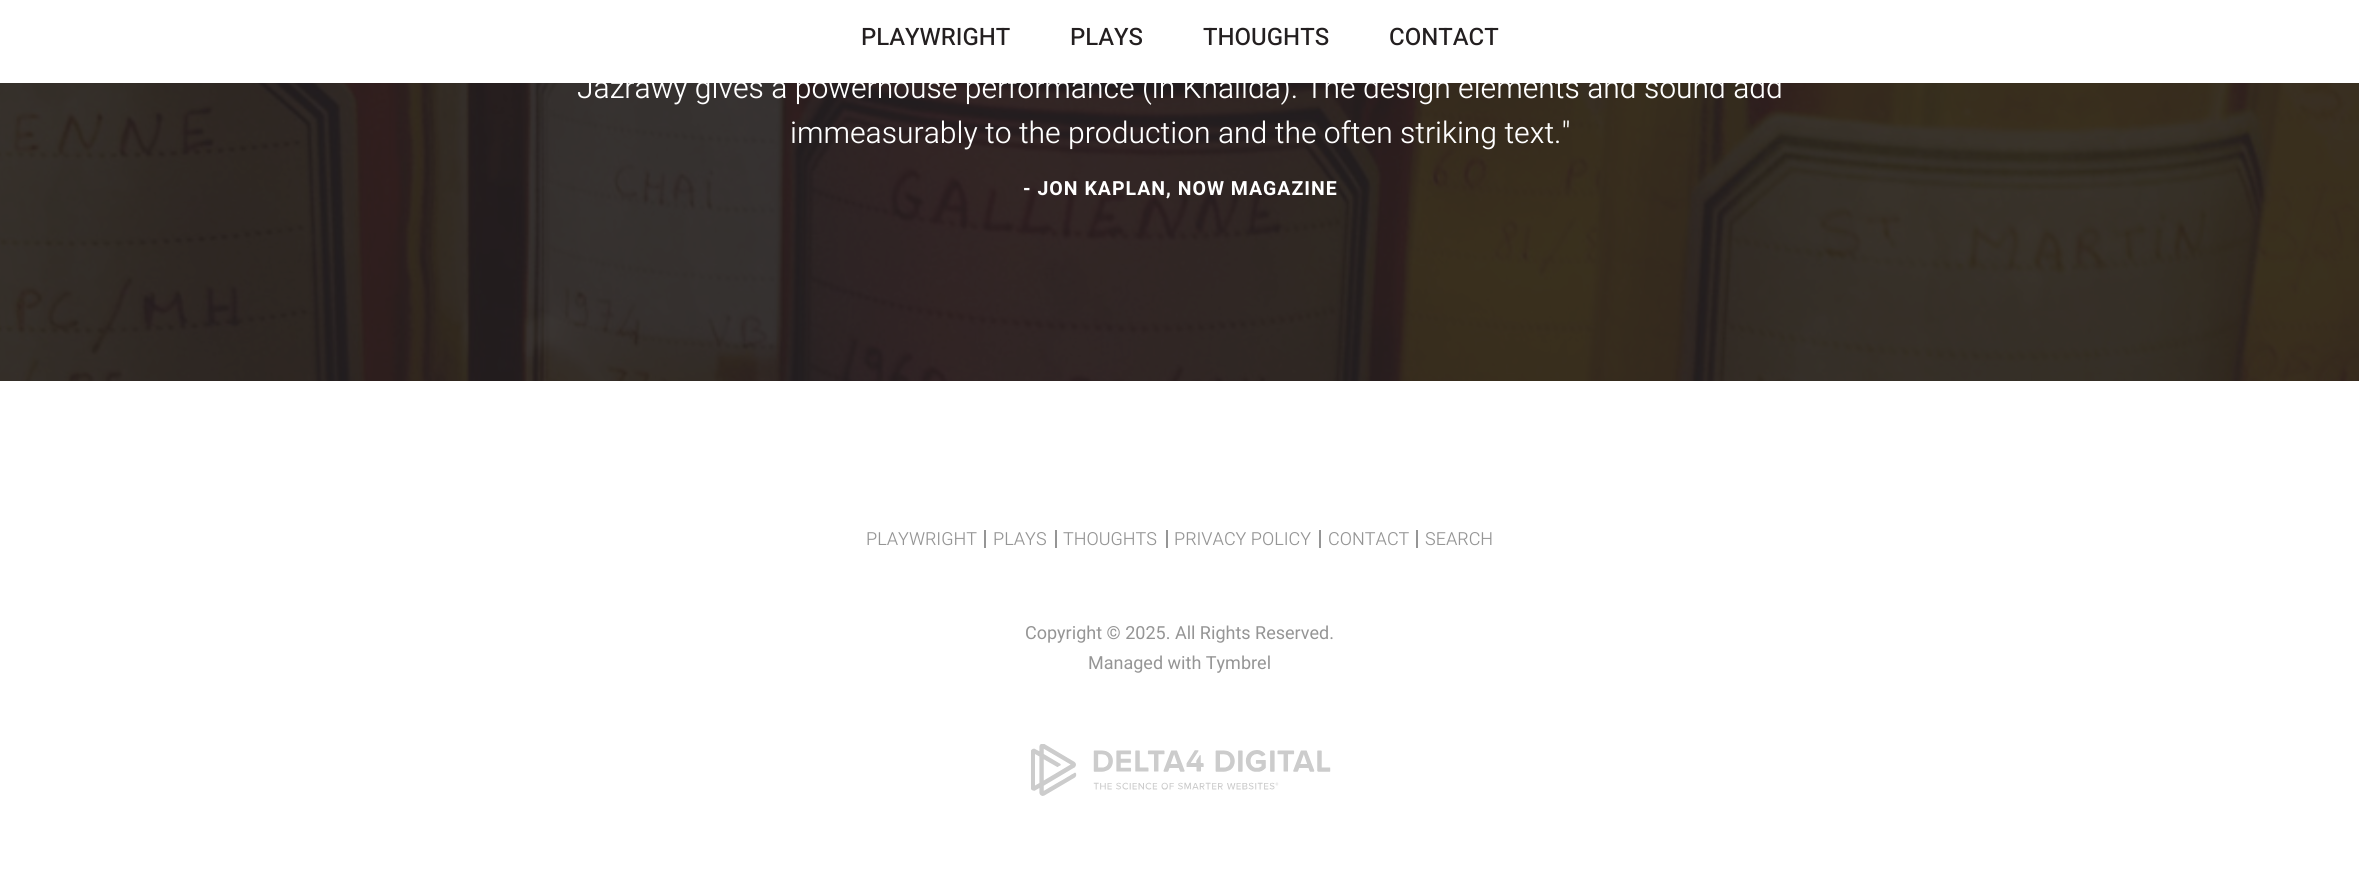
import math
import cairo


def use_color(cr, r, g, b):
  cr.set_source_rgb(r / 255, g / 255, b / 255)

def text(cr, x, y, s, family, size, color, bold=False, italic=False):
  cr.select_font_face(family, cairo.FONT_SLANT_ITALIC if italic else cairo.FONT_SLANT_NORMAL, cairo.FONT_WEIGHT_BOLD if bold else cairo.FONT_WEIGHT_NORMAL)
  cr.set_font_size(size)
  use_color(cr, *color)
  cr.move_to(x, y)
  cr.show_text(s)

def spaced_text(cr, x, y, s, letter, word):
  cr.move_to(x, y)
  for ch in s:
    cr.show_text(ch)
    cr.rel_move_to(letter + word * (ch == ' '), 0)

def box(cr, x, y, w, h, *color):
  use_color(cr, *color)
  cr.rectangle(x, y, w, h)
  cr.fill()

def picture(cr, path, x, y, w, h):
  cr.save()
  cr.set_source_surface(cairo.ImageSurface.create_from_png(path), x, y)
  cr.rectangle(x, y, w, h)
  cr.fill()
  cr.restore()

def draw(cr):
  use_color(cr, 255, 255, 255)
  cr.paint()
  picture(cr, "img_01.png", 0, 83, 2359, 298)
  box(cr, 984, 530, 2, 18, 149, 149, 149)
  box(cr, 1055, 530, 2, 18, 149, 149, 149)
  box(cr, 1166, 530, 2, 18, 149, 149, 149)
  box(cr, 1319, 530, 2, 18, 149, 149, 149)
  box(cr, 1416, 530, 2, 18, 149, 149, 149)
  picture(cr, "img_02.png", 1031, 744, 300, 52)
  text(cr, 861, 45, "PLAYWRIGHT", "Heebo Medium", 24, (35, 31, 32))
  text(cr, 1070, 45, "PLAYS", "Heebo Medium", 24, (35, 31, 32))
  text(cr, 1203, 45, "THOUGHTS", "Heebo Medium", 24, (35, 31, 32))
  text(cr, 1389, 45, "CONTACT", "Heebo Medium", 24, (35, 31, 32))
  text(cr, 577, 98, "Jazrawy gives a powerhouse performance (in Khalida). The design elements and sound add", "Heebo Light", 30, (255, 255, 255))
  text(cr, 790, 143, "immeasurably to the production and the often striking text.\"", "Heebo Light", 30, (255, 255, 255))
  cr.select_font_face("Heebo", cairo.FONT_SLANT_NORMAL, cairo.FONT_WEIGHT_BOLD)
  cr.set_font_size(19.5)
  spaced_text(cr, 1023, 195, "- JON KAPLAN, NOW MAGAZINE", 1, 0)
  text(cr, 866, 545, "PLAYWRIGHT", "Heebo Light", 18, (149, 149, 149))
  text(cr, 993, 545, "PLAYS", "Heebo Light", 18, (149, 149, 149))
  text(cr, 1063, 545, "THOUGHTS", "Heebo Light", 18, (149, 149, 149))
  text(cr, 1174, 545, "PRIVACY POLICY", "Heebo Light", 18, (149, 149, 149))
  text(cr, 1328, 545, "CONTACT", "Heebo Light", 18, (149, 149, 149))
  text(cr, 1425, 545, "SEARCH", "Heebo Light", 18, (149, 149, 149))
  text(cr, 1025, 639, "Copyright © 2025. All Rights Reserved.", "Heebo", 18, (149, 149, 149))
  text(cr, 1088, 669, "Managed with Tymbrel", "Heebo", 18, (149, 149, 149))


surface = cairo.ImageSurface(cairo.FORMAT_RGB24, 2359, 882)
cr = cairo.Context(surface)
options = cairo.FontOptions()
options.set_hint_metrics(cairo.HINT_METRICS_OFF)
options.set_hint_style(cairo.HINT_STYLE_NONE)
cr.set_font_options(options)
cr.set_miter_limit(4)
draw(cr)
surface.write_to_png("out.png")
